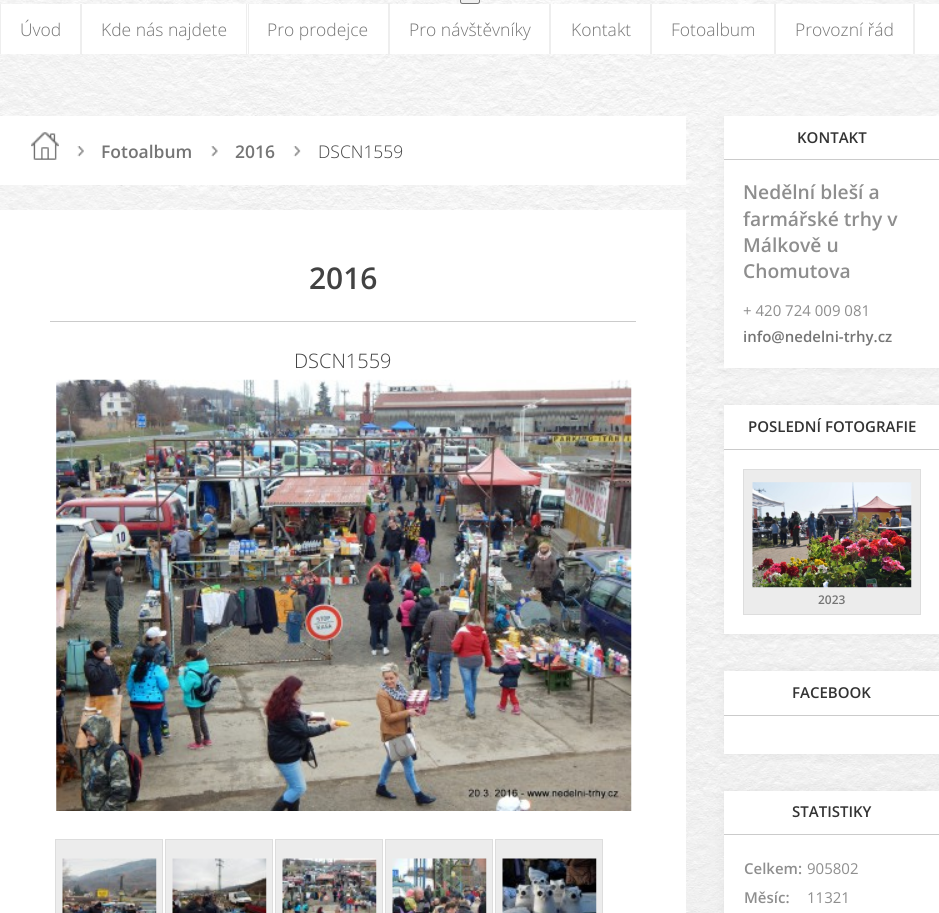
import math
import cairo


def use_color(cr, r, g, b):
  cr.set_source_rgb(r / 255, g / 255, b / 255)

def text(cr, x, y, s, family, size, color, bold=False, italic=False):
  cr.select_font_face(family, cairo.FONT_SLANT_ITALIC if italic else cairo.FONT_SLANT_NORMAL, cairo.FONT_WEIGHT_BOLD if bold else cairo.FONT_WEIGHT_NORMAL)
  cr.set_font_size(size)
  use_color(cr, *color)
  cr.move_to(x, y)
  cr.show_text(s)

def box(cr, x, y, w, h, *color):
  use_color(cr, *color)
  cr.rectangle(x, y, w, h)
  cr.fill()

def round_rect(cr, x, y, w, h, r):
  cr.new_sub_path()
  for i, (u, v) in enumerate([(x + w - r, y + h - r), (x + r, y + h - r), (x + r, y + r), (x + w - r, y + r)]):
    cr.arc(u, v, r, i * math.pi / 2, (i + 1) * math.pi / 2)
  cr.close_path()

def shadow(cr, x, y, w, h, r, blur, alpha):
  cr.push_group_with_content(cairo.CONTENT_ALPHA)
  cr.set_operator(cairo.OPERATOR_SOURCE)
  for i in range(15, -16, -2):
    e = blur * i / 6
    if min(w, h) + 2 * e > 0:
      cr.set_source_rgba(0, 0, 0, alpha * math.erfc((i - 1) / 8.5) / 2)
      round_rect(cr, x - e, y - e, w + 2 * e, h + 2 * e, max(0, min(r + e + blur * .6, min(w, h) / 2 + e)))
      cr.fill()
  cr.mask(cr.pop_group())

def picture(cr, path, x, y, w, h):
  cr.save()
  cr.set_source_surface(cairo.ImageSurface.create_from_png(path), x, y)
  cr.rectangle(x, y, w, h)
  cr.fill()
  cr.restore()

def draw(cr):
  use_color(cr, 255, 255, 255)
  cr.paint()
  picture(cr, "img_01.png", 0, 0, 939, 913)
  use_color(cr, 239, 239, 239)
  round_rect(cr, 460.5, -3.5, 19, 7, 2)
  cr.fill_preserve()
  use_color(cr, 118, 118, 118)
  cr.set_line_width(1)
  cr.stroke()
  box(cr, 1, 4, 938, 50, 255, 255, 255)
  box(cr, 80, 4, 2, 50, 238, 238, 238)
  box(cr, 0, 4, 1, 50, 238, 238, 238)
  box(cr, 248, 4, 1, 50, 238, 238, 238)
  box(cr, 246, 4, 1, 50, 238, 238, 238)
  box(cr, 388, 4, 2, 50, 238, 238, 238)
  box(cr, 549, 4, 2, 50, 238, 238, 238)
  box(cr, 650, 4, 2, 50, 238, 238, 238)
  box(cr, 774, 4, 2, 50, 238, 238, 238)
  box(cr, 913, 4, 2, 50, 238, 238, 238)
  box(cr, 0, 116, 686, 69, 255, 255, 255)
  picture(cr, "img_02.png", 31, 132, 28, 28)
  picture(cr, "img_03.png", 77, 146, 7, 11)
  picture(cr, "img_04.png", 211, 146, 7, 11)
  picture(cr, "img_05.png", 293, 146, 8, 11)
  box(cr, 0, 210, 686, 703, 255, 255, 255)
  box(cr, 50, 321, 586, 1, 203, 203, 203)
  picture(cr, "img_06.png", 56, 379, 576, 432)
  use_color(cr, 236, 236, 236)
  cr.rectangle(55.5, 839.5, 107, 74)
  cr.fill_preserve()
  use_color(cr, 221, 221, 221)
  cr.stroke()
  picture(cr, "img_07.png", 62, 858, 95, 55)
  use_color(cr, 236, 236, 236)
  cr.rectangle(165.5, 839.5, 107, 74)
  cr.fill_preserve()
  use_color(cr, 221, 221, 221)
  cr.stroke()
  picture(cr, "img_08.png", 172, 858, 95, 55)
  use_color(cr, 236, 236, 236)
  cr.rectangle(275.5, 839.5, 107, 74)
  cr.fill_preserve()
  use_color(cr, 221, 221, 221)
  cr.stroke()
  picture(cr, "img_09.png", 282, 858, 95, 55)
  use_color(cr, 236, 236, 236)
  cr.rectangle(385.5, 839.5, 107, 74)
  cr.fill_preserve()
  use_color(cr, 221, 221, 221)
  cr.stroke()
  picture(cr, "img_10.png", 392, 858, 95, 55)
  use_color(cr, 236, 236, 236)
  cr.rectangle(495.5, 839.5, 107, 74)
  cr.fill_preserve()
  use_color(cr, 221, 221, 221)
  cr.stroke()
  picture(cr, "img_11.png", 502, 858, 95, 55)
  cr.save()
  cr.rectangle(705, 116, 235, 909)
  cr.clip()
  use_color(cr, 0, 0, 0)
  shadow(cr, 724, 116, 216, 252, 0, 6, 0.05)
  cr.restore()
  box(cr, 724, 116, 215, 252, 255, 255, 255)
  box(cr, 724, 159, 215, 1, 203, 203, 203)
  use_color(cr, 0, 0, 0)
  shadow(cr, 724, 405, 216, 229, 0, 6, 0.05)
  box(cr, 724, 405, 215, 229, 255, 255, 255)
  box(cr, 724, 449, 215, 1, 203, 203, 203)
  use_color(cr, 236, 236, 236)
  cr.rectangle(743.5, 469.5, 177, 145)
  cr.fill_preserve()
  use_color(cr, 221, 221, 221)
  cr.stroke()
  picture(cr, "img_12.png", 752, 482, 160, 106)
  use_color(cr, 0, 0, 0)
  shadow(cr, 724, 671, 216, 83, 0, 6, 0.05)
  box(cr, 724, 671, 215, 83, 255, 255, 255)
  box(cr, 724, 715, 215, 1, 203, 203, 203)
  use_color(cr, 0, 0, 0)
  shadow(cr, 724, 791, 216, 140, 0, 6, 0.05)
  box(cr, 724, 791, 215, 122, 255, 255, 255)
  box(cr, 724, 834, 215, 1, 203, 203, 203)
  text(cr, 20, 36, "Úvod", "Open Sans Light", 17.5, (117, 117, 117))
  text(cr, 101, 36, "Kde nás najdete", "Open Sans Light", 17.5, (117, 117, 117))
  text(cr, 267, 36, "Pro prodejce", "Open Sans Light", 17.5, (117, 117, 117))
  text(cr, 409, 36, "Pro návštěvníky", "Open Sans Light", 17.5, (117, 117, 117))
  text(cr, 571, 36, "Kontakt", "Open Sans Light", 17.5, (117, 117, 117))
  text(cr, 671, 36, "Fotoalbum", "Open Sans Light", 17.5, (117, 117, 117))
  text(cr, 795, 36, "Provozní řád", "Open Sans Light", 17.5, (117, 117, 117))
  text(cr, 101, 158, "Fotoalbum", "Open Sans SemiBold", 17.5, (117, 117, 117))
  text(cr, 235, 158, "2016", "Open Sans SemiBold", 17.5, (117, 117, 117))
  text(cr, 318, 158, "DSCN1559", "Open Sans Light", 17.5, (66, 66, 66))
  text(cr, 309, 289, "2016", "Open Sans SemiBold", 30, (66, 66, 66))
  text(cr, 294, 368, "DSCN1559", "Open Sans Light", 20, (66, 66, 66))
  text(cr, 797, 143, "KONTAKT", "Open Sans SemiBold", 15, (51, 51, 51))
  text(cr, 743, 199, "Nedělní bleší a", "Open Sans SemiBold", 19.25, (142, 142, 142))
  text(cr, 743, 226, "farmářské trhy v", "Open Sans SemiBold", 19.25, (142, 142, 142))
  text(cr, 743, 252, "Málkově u", "Open Sans SemiBold", 19.25, (142, 142, 142))
  text(cr, 743, 278, "Chomutova", "Open Sans SemiBold", 19.25, (142, 142, 142))
  text(cr, 743, 316, "+ 420 724 009 081", "Open Sans", 15, (142, 142, 142))
  text(cr, 743, 342, "info@nedelni-trhy.cz", "Open Sans SemiBold", 15, (117, 117, 117))
  text(cr, 748, 432, "POSLEDNÍ FOTOGRAFIE", "Open Sans SemiBold", 15, (51, 51, 51))
  text(cr, 818, 604, "2023", "Open Sans SemiBold", 12, (117, 117, 117))
  text(cr, 792, 698, "FACEBOOK", "Open Sans SemiBold", 15, (51, 51, 51))
  text(cr, 792, 817, "STATISTIKY", "Open Sans SemiBold", 15, (51, 51, 51))
  text(cr, 744, 874, "Celkem:", "Open Sans SemiBold", 15, (142, 142, 142))
  text(cr, 807, 874, "905802", "Open Sans", 15, (142, 142, 142))
  text(cr, 744, 903, "Měsíc:", "Open Sans SemiBold", 15, (142, 142, 142))
  text(cr, 807, 903, "11321", "Open Sans", 15, (142, 142, 142))


surface = cairo.ImageSurface(cairo.FORMAT_RGB24, 939, 913)
cr = cairo.Context(surface)
options = cairo.FontOptions()
options.set_hint_metrics(cairo.HINT_METRICS_OFF)
options.set_hint_style(cairo.HINT_STYLE_NONE)
cr.set_font_options(options)
cr.set_miter_limit(4)
draw(cr)
surface.write_to_png("out.png")
